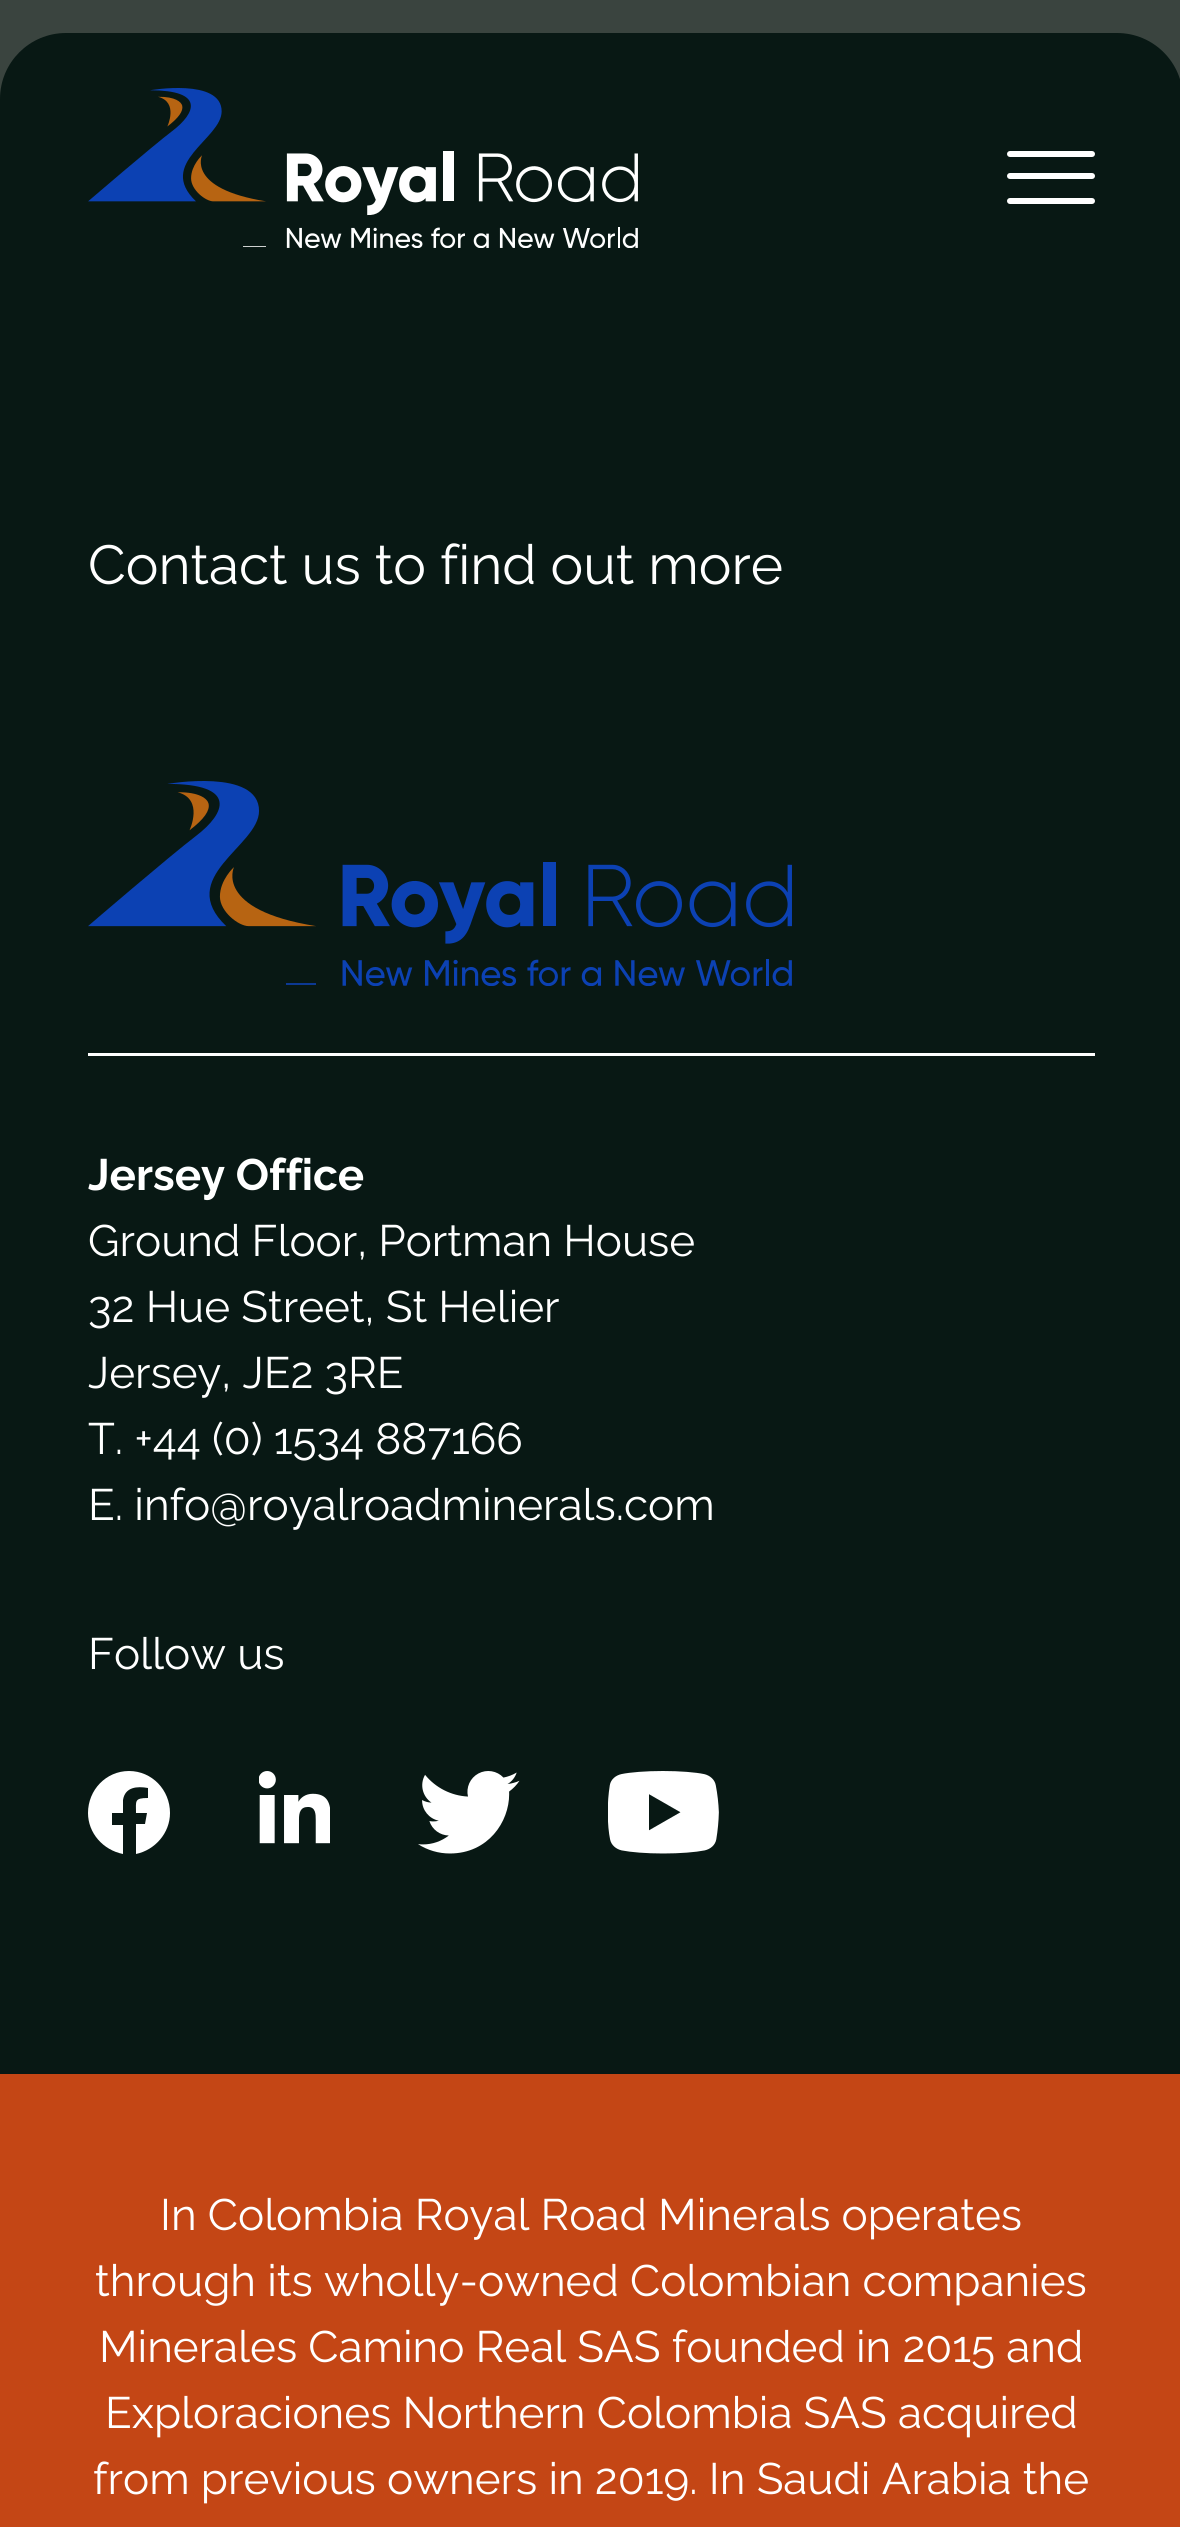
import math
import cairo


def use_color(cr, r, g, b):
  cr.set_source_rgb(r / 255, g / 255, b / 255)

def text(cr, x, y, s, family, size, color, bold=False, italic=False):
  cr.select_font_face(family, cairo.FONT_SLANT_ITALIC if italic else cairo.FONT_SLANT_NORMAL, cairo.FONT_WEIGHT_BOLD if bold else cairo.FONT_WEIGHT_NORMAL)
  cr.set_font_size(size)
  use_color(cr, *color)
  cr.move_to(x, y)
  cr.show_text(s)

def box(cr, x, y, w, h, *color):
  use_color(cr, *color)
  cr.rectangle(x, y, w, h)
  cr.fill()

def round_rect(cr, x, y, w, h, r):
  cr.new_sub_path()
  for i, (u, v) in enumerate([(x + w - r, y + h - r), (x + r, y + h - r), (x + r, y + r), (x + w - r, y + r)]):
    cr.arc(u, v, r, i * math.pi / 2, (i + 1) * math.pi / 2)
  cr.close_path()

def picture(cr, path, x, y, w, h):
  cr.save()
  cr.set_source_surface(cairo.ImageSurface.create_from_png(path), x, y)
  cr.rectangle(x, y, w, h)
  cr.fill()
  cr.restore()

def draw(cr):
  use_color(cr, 58, 68, 63)
  cr.paint()
  use_color(cr, 8, 24, 20)
  cr.new_path()
  cr.move_to(66, 33)
  cr.line_to(1117, 33)
  cr.curve_to(1153.5, 33, 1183, 62.5, 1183, 99)
  cr.line_to(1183, 303)
  cr.line_to(0, 303)
  cr.line_to(0, 99)
  cr.curve_to(0, 62.5, 29.5, 33, 66, 33)
  cr.close_path()
  cr.fill()
  picture(cr, "img_01.png", 88, 88, 550, 160)
  use_color(cr, 255, 255, 255)
  round_rect(cr, 1007, 151, 88, 6, 3)
  cr.fill()
  round_rect(cr, 1007, 173, 88, 6, 3)
  cr.fill()
  round_rect(cr, 1007, 198, 88, 6, 3)
  cr.fill()
  box(cr, 0, 303, 1180, 1771, 8, 24, 20)
  picture(cr, "img_02.png", 88, 781, 704, 205)
  box(cr, 88, 1053, 1007, 3, 255, 255, 255)
  cr.new_path()
  cr.move_to(170, 1813)
  cr.curve_to(170, 1790, 152, 1771, 129, 1771)
  cr.curve_to(106, 1771, 88, 1790, 88, 1813)
  cr.curve_to(88, 1833, 103, 1850, 123, 1854)
  cr.line_to(123, 1825)
  cr.line_to(112, 1825)
  cr.line_to(112, 1813)
  cr.line_to(123, 1813)
  cr.line_to(123, 1800)
  cr.curve_to(125, 1787, 137, 1786, 148, 1788)
  cr.line_to(148, 1798)
  cr.curve_to(134, 1798, 136, 1801, 136, 1813)
  cr.line_to(147, 1813)
  cr.line_to(145, 1824)
  cr.line_to(136, 1824)
  cr.line_to(136, 1854)
  cr.curve_to(155, 1850, 170, 1833, 170, 1813)
  cr.close_path()
  cr.fill()
  picture(cr, "img_03.png", 259, 1771, 71, 73)
  picture(cr, "img_04.png", 418, 1771, 102, 83)
  picture(cr, "img_05.png", 608, 1771, 111, 83)
  box(cr, 0, 2074, 1180, 453, 196, 70, 21)
  text(cr, 88, 584, "Contact us to find out more", "Raleway", 55, (255, 255, 255))
  text(cr, 88, 1190, "Jersey Office", "Raleway", 44, (255, 255, 255), bold=True)
  text(cr, 88, 1256, "Ground Floor, Portman House", "Raleway", 44, (255, 255, 255))
  text(cr, 88, 1322, "32 Hue Street, St Helier", "Raleway", 44, (255, 255, 255))
  text(cr, 88, 1388, "Jersey, JE2 3RE", "Raleway", 44, (255, 255, 255))
  text(cr, 88, 1454, "T. +44 (0) 1534 887166", "Raleway", 44, (255, 255, 255))
  text(cr, 88, 1520, "E. info@royalroadminerals.com", "Raleway", 44, (255, 255, 255))
  text(cr, 88, 1669, "Follow us", "Raleway", 44, (255, 255, 255))
  text(cr, 160, 2230, "In Colombia Royal Road Minerals operates", "Raleway", 44, (255, 255, 255))
  text(cr, 95, 2296, "through its wholly-owned Colombian companies", "Raleway", 44, (255, 255, 255))
  text(cr, 99, 2362, "Minerales Camino Real SAS founded in 2015 and", "Raleway", 44, (255, 255, 255))
  text(cr, 105, 2428, "Exploraciones Northern Colombia SAS acquired", "Raleway", 44, (255, 255, 255))
  text(cr, 93, 2494, "from previous owners in 2019. In Saudi Arabia the", "Raleway", 44, (255, 255, 255))


surface = cairo.ImageSurface(cairo.FORMAT_RGB24, 1180, 2527)
cr = cairo.Context(surface)
options = cairo.FontOptions()
options.set_hint_metrics(cairo.HINT_METRICS_OFF)
options.set_hint_style(cairo.HINT_STYLE_NONE)
cr.set_font_options(options)
cr.set_miter_limit(4)
draw(cr)
surface.write_to_png("out.png")
